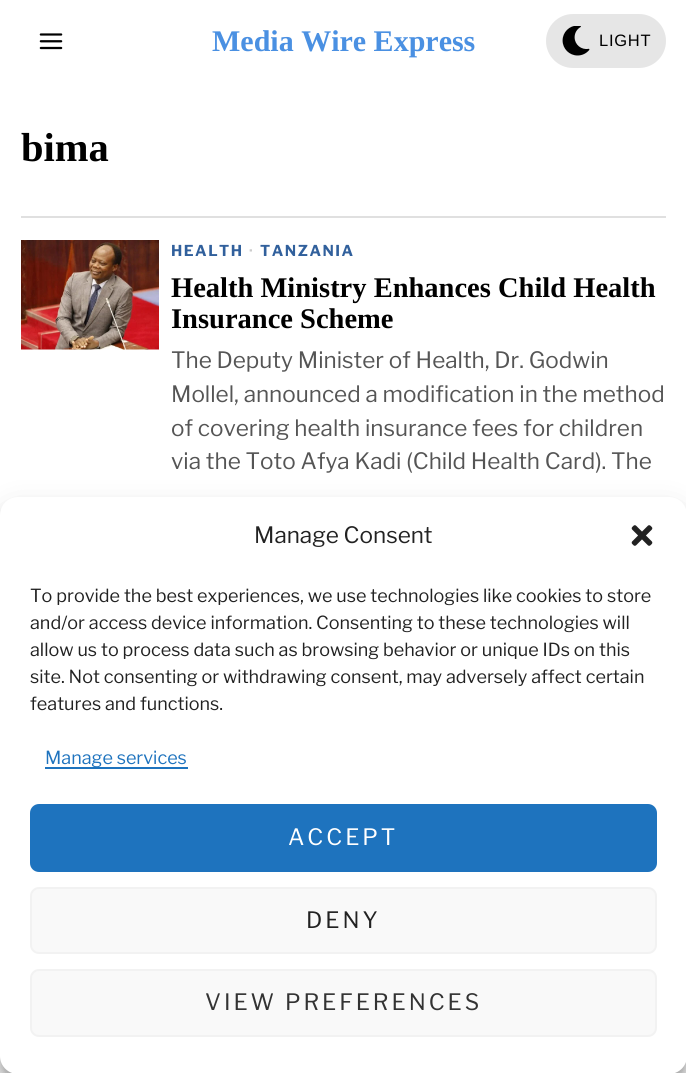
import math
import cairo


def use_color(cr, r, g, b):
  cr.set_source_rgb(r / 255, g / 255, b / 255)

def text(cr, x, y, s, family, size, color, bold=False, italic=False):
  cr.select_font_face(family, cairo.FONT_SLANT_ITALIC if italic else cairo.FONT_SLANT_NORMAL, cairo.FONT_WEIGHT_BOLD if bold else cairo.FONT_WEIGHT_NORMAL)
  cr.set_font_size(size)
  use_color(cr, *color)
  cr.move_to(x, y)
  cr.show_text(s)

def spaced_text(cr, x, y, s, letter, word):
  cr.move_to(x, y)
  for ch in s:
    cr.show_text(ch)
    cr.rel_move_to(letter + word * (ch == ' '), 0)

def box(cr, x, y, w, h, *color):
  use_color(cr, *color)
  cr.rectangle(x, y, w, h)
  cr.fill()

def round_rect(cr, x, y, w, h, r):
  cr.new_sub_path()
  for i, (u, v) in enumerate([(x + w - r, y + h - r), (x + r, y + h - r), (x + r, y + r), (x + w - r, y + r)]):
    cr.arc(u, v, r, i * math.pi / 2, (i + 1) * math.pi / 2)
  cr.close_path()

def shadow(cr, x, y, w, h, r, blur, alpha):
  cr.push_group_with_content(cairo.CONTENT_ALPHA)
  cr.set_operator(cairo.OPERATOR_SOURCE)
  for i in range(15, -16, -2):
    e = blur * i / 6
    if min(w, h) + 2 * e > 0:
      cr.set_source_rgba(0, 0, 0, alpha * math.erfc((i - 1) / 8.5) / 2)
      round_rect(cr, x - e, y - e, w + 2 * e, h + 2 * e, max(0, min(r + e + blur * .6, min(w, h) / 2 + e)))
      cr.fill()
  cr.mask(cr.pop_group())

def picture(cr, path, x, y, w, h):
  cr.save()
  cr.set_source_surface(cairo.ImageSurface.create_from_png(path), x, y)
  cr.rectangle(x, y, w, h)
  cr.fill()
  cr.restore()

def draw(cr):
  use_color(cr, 255, 255, 255)
  cr.paint()
  picture(cr, "img_01.png", 39, 33, 24, 17)
  use_color(cr, 230, 230, 230)
  round_rect(cr, 546, 14, 120, 54, 27)
  cr.fill()
  picture(cr, "img_02.png", 562, 26, 28, 30)
  box(cr, 21, 216, 645, 2, 224, 224, 224)
  picture(cr, "img_03.png", 21, 240, 138, 110)
  box(cr, 0, 1056, 686, 17, 250, 250, 250)
  use_color(cr, 0, 0, 0)
  shadow(cr, 0, 506, 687, 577, 18, 4.5, 0.23)
  shadow(cr, 0, 512, 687, 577, 18, 15, 0.19)
  use_color(cr, 255, 255, 255)
  round_rect(cr, 0, 497, 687, 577, 18)
  cr.fill()
  picture(cr, "img_04.png", 631, 525, 22, 21)
  box(cr, 45, 767, 143, 2, 30, 115, 190)
  round_rect(cr, 31, 805, 625, 66, 8)
  cr.fill_preserve()
  cr.stroke()
  use_color(cr, 249, 249, 249)
  round_rect(cr, 31, 888, 625, 65, 8)
  cr.fill_preserve()
  use_color(cr, 242, 242, 242)
  cr.stroke()
  use_color(cr, 249, 249, 249)
  round_rect(cr, 31, 970, 625, 66, 8)
  cr.fill_preserve()
  use_color(cr, 242, 242, 242)
  cr.stroke()
  text(cr, 212, 51, "Media Wire Express", "Tinos", 30, (74, 144, 226), bold=True)
  cr.select_font_face("Liberation Sans")
  cr.set_font_size(16.5)
  use_color(cr, 0, 0, 0)
  spaced_text(cr, 599, 46, "LIGHT", 0.75, 0)
  text(cr, 21, 161, "bima", "Tinos", 40.5, (0, 0, 0), bold=True)
  cr.select_font_face("Libre Franklin", cairo.FONT_SLANT_NORMAL, cairo.FONT_WEIGHT_BOLD)
  cr.set_font_size(15)
  use_color(cr, 49, 96, 156)
  spaced_text(cr, 171, 256, "HEALTH", 1.5, 0)
  use_color(cr, 204, 204, 204)
  spaced_text(cr, 249, 256, "·", 1.5, 0)
  use_color(cr, 49, 96, 156)
  spaced_text(cr, 260, 256, "TANZANIA", 1.5, 0)
  text(cr, 171, 297, "Health Ministry Enhances Child Health", "Tinos", 28.5, (0, 0, 0), bold=True)
  text(cr, 171, 328, "Insurance Scheme", "Tinos", 28.5, (0, 0, 0), bold=True)
  text(cr, 171, 368, "The Deputy Minister of Health, Dr. Godwin", "Libre Franklin", 22.5, (85, 85, 85))
  text(cr, 171, 402, "Mollel, announced a modification in the method", "Libre Franklin", 22.5, (85, 85, 85))
  text(cr, 171, 436, "of covering health insurance fees for children", "Libre Franklin", 22.5, (85, 85, 85))
  text(cr, 171, 469, "via the Toto Afya Kadi (Child Health Card). The", "Libre Franklin", 22.5, (85, 85, 85))
  text(cr, 254, 543, "Manage Consent", "Libre Franklin", 22.5, (34, 34, 34))
  text(cr, 30, 602, "To provide the best experiences, we use technologies like cookies to store", "Libre Franklin", 18, (34, 34, 34))
  text(cr, 30, 629, "and/or access device information. Consenting to these technologies will", "Libre Franklin", 18, (34, 34, 34))
  text(cr, 30, 656, "allow us to process data such as browsing behavior or unique IDs on this", "Libre Franklin", 18, (34, 34, 34))
  text(cr, 30, 683, "site. Not consenting or withdrawing consent, may adversely affect certain", "Libre Franklin", 18, (34, 34, 34))
  text(cr, 30, 710, "features and functions.", "Libre Franklin", 18, (34, 34, 34))
  text(cr, 45, 764, "Manage services", "Libre Franklin", 18, (30, 115, 190))
  cr.set_font_size(22.5)
  use_color(cr, 255, 255, 255)
  spaced_text(cr, 288, 845, "ACCEPT", 3, 0)
  use_color(cr, 34, 34, 34)
  spaced_text(cr, 306, 928, "DENY", 3, 0)
  use_color(cr, 51, 51, 51)
  spaced_text(cr, 205, 1010, "VIEW PREFERENCES", 3, 0)


surface = cairo.ImageSurface(cairo.FORMAT_RGB24, 686, 1073)
cr = cairo.Context(surface)
options = cairo.FontOptions()
options.set_hint_metrics(cairo.HINT_METRICS_OFF)
options.set_hint_style(cairo.HINT_STYLE_NONE)
cr.set_font_options(options)
cr.set_miter_limit(4)
draw(cr)
surface.write_to_png("out.png")
